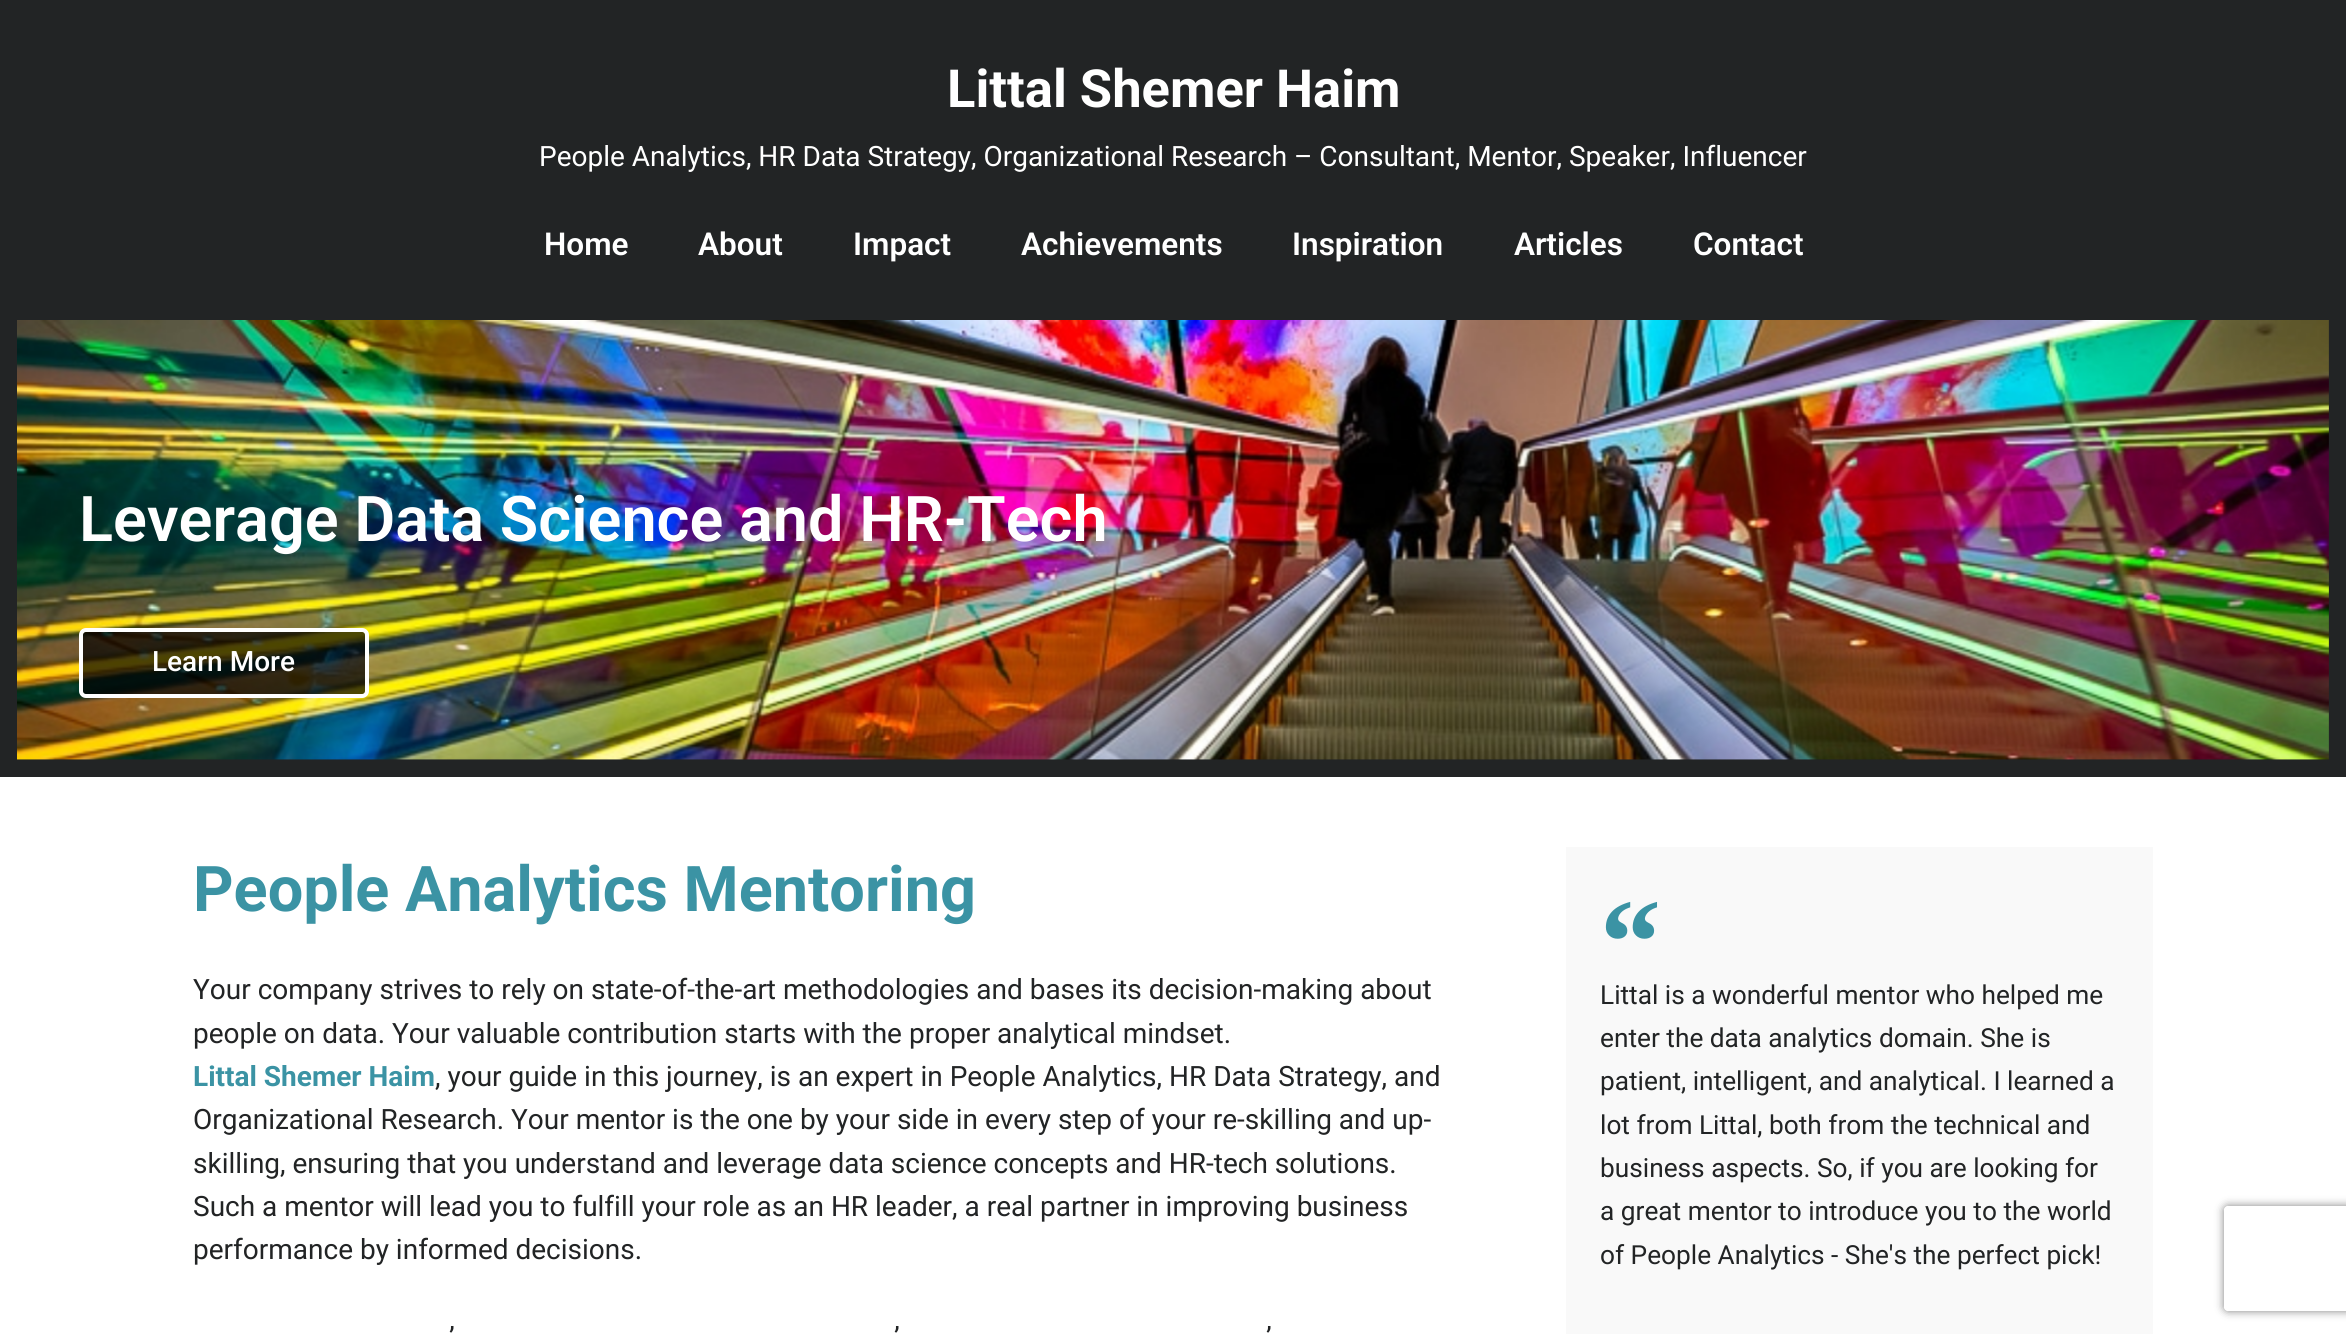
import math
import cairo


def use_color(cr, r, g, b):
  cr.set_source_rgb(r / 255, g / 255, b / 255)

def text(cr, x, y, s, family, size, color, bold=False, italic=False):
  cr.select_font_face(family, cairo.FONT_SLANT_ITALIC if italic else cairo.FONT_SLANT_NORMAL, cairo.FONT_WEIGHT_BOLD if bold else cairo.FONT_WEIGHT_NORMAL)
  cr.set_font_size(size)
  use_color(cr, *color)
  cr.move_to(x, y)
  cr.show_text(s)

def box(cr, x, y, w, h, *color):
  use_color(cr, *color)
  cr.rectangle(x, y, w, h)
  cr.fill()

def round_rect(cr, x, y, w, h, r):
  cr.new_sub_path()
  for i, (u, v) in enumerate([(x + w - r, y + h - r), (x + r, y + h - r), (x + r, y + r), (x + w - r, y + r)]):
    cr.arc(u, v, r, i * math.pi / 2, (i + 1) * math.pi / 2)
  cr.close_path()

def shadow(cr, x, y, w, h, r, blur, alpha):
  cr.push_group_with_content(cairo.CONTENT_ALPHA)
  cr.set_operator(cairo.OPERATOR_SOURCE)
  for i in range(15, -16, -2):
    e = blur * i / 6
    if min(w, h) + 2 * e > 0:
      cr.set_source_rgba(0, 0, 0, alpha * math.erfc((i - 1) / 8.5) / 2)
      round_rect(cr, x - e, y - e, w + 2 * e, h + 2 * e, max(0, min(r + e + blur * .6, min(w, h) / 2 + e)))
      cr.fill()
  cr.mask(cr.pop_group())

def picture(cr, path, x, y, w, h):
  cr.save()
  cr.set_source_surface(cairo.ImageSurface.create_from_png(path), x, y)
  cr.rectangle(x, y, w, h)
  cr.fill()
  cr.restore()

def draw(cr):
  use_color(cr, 255, 255, 255)
  cr.paint()
  box(cr, 0, 0, 2346, 777, 34, 36, 37)
  picture(cr, "img_01.png", 17, 320, 2312, 440)
  cr.set_source_rgba(0.008, 0.004, 0.004, 0.7)
  round_rect(cr, 81, 630, 286, 66, 5)
  cr.fill_preserve()
  use_color(cr, 255, 255, 255)
  cr.set_line_width(4)
  cr.stroke()
  box(cr, 1566, 847, 587, 487, 249, 249, 249)
  cr.save()
  cr.set_fill_rule(cairo.FILL_RULE_EVEN_ODD)
  cr.new_path()
  cr.move_to(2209, 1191)
  cr.line_to(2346, 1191)
  cr.line_to(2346, 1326)
  cr.line_to(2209, 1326)
  cr.close_path()
  cr.move_to(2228, 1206)
  cr.line_to(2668, 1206)
  cr.curve_to(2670, 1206, 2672, 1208, 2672, 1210)
  cr.line_to(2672, 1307)
  cr.curve_to(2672, 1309, 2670, 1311, 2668, 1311)
  cr.line_to(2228, 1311)
  cr.curve_to(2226, 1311, 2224, 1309, 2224, 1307)
  cr.line_to(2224, 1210)
  cr.curve_to(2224, 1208, 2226, 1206, 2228, 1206)
  cr.close_path()
  cr.clip()
  use_color(cr, 128, 128, 128)
  shadow(cr, 2224, 1206, 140, 105, 4, 4.5, 1)
  cr.restore()
  text(cr, 947, 107, "Littal Shemer Haim", "Roboto", 52.5, (255, 255, 255), bold=True)
  text(cr, 539, 166, "People Analytics, HR Data Strategy, Organizational Research – Consultant, Mentor, Speaker, Influencer", "Roboto", 28, (255, 255, 255))
  text(cr, 544, 255, "Home", "Roboto SemiBold", 31.5, (255, 255, 255))
  text(cr, 698, 255, "About", "Roboto SemiBold", 31.5, (255, 255, 255))
  text(cr, 853, 255, "Impact", "Roboto SemiBold", 31.5, (255, 255, 255))
  text(cr, 1021, 255, "Achievements", "Roboto SemiBold", 31.5, (255, 255, 255))
  text(cr, 1292, 255, "Inspiration", "Roboto SemiBold", 31.5, (255, 255, 255))
  text(cr, 1514, 255, "Articles", "Roboto SemiBold", 31.5, (255, 255, 255))
  text(cr, 1693, 255, "Contact", "Roboto SemiBold", 31.5, (255, 255, 255))
  text(cr, 79, 541, "Leverage Data Science and HR-Tech", "Roboto SemiBold", 63, (255, 255, 255))
  text(cr, 152, 671, "Learn More", "Roboto Medium", 28, (255, 255, 255))
  text(cr, 193, 911, "People Analytics Mentoring", "Roboto", 63, (59, 147, 164), bold=True)
  text(cr, 193, 999, "Your company strives to rely on state-of-the-art methodologies and bases its decision-making about", "Roboto", 28, (34, 36, 37))
  text(cr, 193, 1043, "people on data. Your valuable contribution starts with the proper analytical mindset.", "Roboto", 28, (34, 36, 37))
  text(cr, 193, 1086, "Littal Shemer Haim", "Roboto", 28, (59, 147, 164), bold=True)
  text(cr, 435, 1086, ", your guide in this journey, is an expert in People Analytics, HR Data Strategy, and", "Roboto", 28, (34, 36, 37))
  text(cr, 193, 1129, "Organizational Research. Your mentor is the one by your side in every step of your re-skilling and up-", "Roboto", 28, (34, 36, 37))
  text(cr, 193, 1173, "skilling, ensuring that you understand and leverage data science concepts and HR-tech solutions.", "Roboto", 28, (34, 36, 37))
  text(cr, 193, 1216, "Such a mentor will lead you to fulfill your role as an HR leader, a real partner in improving business", "Roboto", 28, (34, 36, 37))
  text(cr, 193, 1259, "performance by informed decisions.", "Roboto", 28, (34, 36, 37))
  text(cr, 449, 1347, "’", "Roboto", 28, (34, 36, 37))
  text(cr, 894, 1347, "’", "Roboto", 28, (34, 36, 37))
  text(cr, 1266, 1347, "’", "Roboto", 28, (34, 36, 37))
  text(cr, 1600, 983, "“", "Liberation Serif", 122, (59, 147, 164), bold=True)
  text(cr, 1600, 1004, "Littal is a wonderful mentor who helped me", "Roboto", 26.25, (34, 36, 37))
  text(cr, 1600, 1047, "enter the data analytics domain. She is", "Roboto", 26.25, (34, 36, 37))
  text(cr, 1600, 1090, "patient, intelligent, and analytical. I learned a", "Roboto", 26.25, (34, 36, 37))
  text(cr, 1600, 1134, "lot from Littal, both from the technical and", "Roboto", 26.25, (34, 36, 37))
  text(cr, 1600, 1177, "business aspects. So, if you are looking for", "Roboto", 26.25, (34, 36, 37))
  text(cr, 1600, 1220, "a great mentor to introduce you to the world", "Roboto", 26.25, (34, 36, 37))
  text(cr, 1600, 1264, "of People Analytics - She's the perfect pick!", "Roboto", 26.25, (34, 36, 37))


surface = cairo.ImageSurface(cairo.FORMAT_RGB24, 2346, 1334)
cr = cairo.Context(surface)
options = cairo.FontOptions()
options.set_hint_metrics(cairo.HINT_METRICS_OFF)
options.set_hint_style(cairo.HINT_STYLE_NONE)
cr.set_font_options(options)
cr.set_miter_limit(4)
draw(cr)
surface.write_to_png("out.png")
